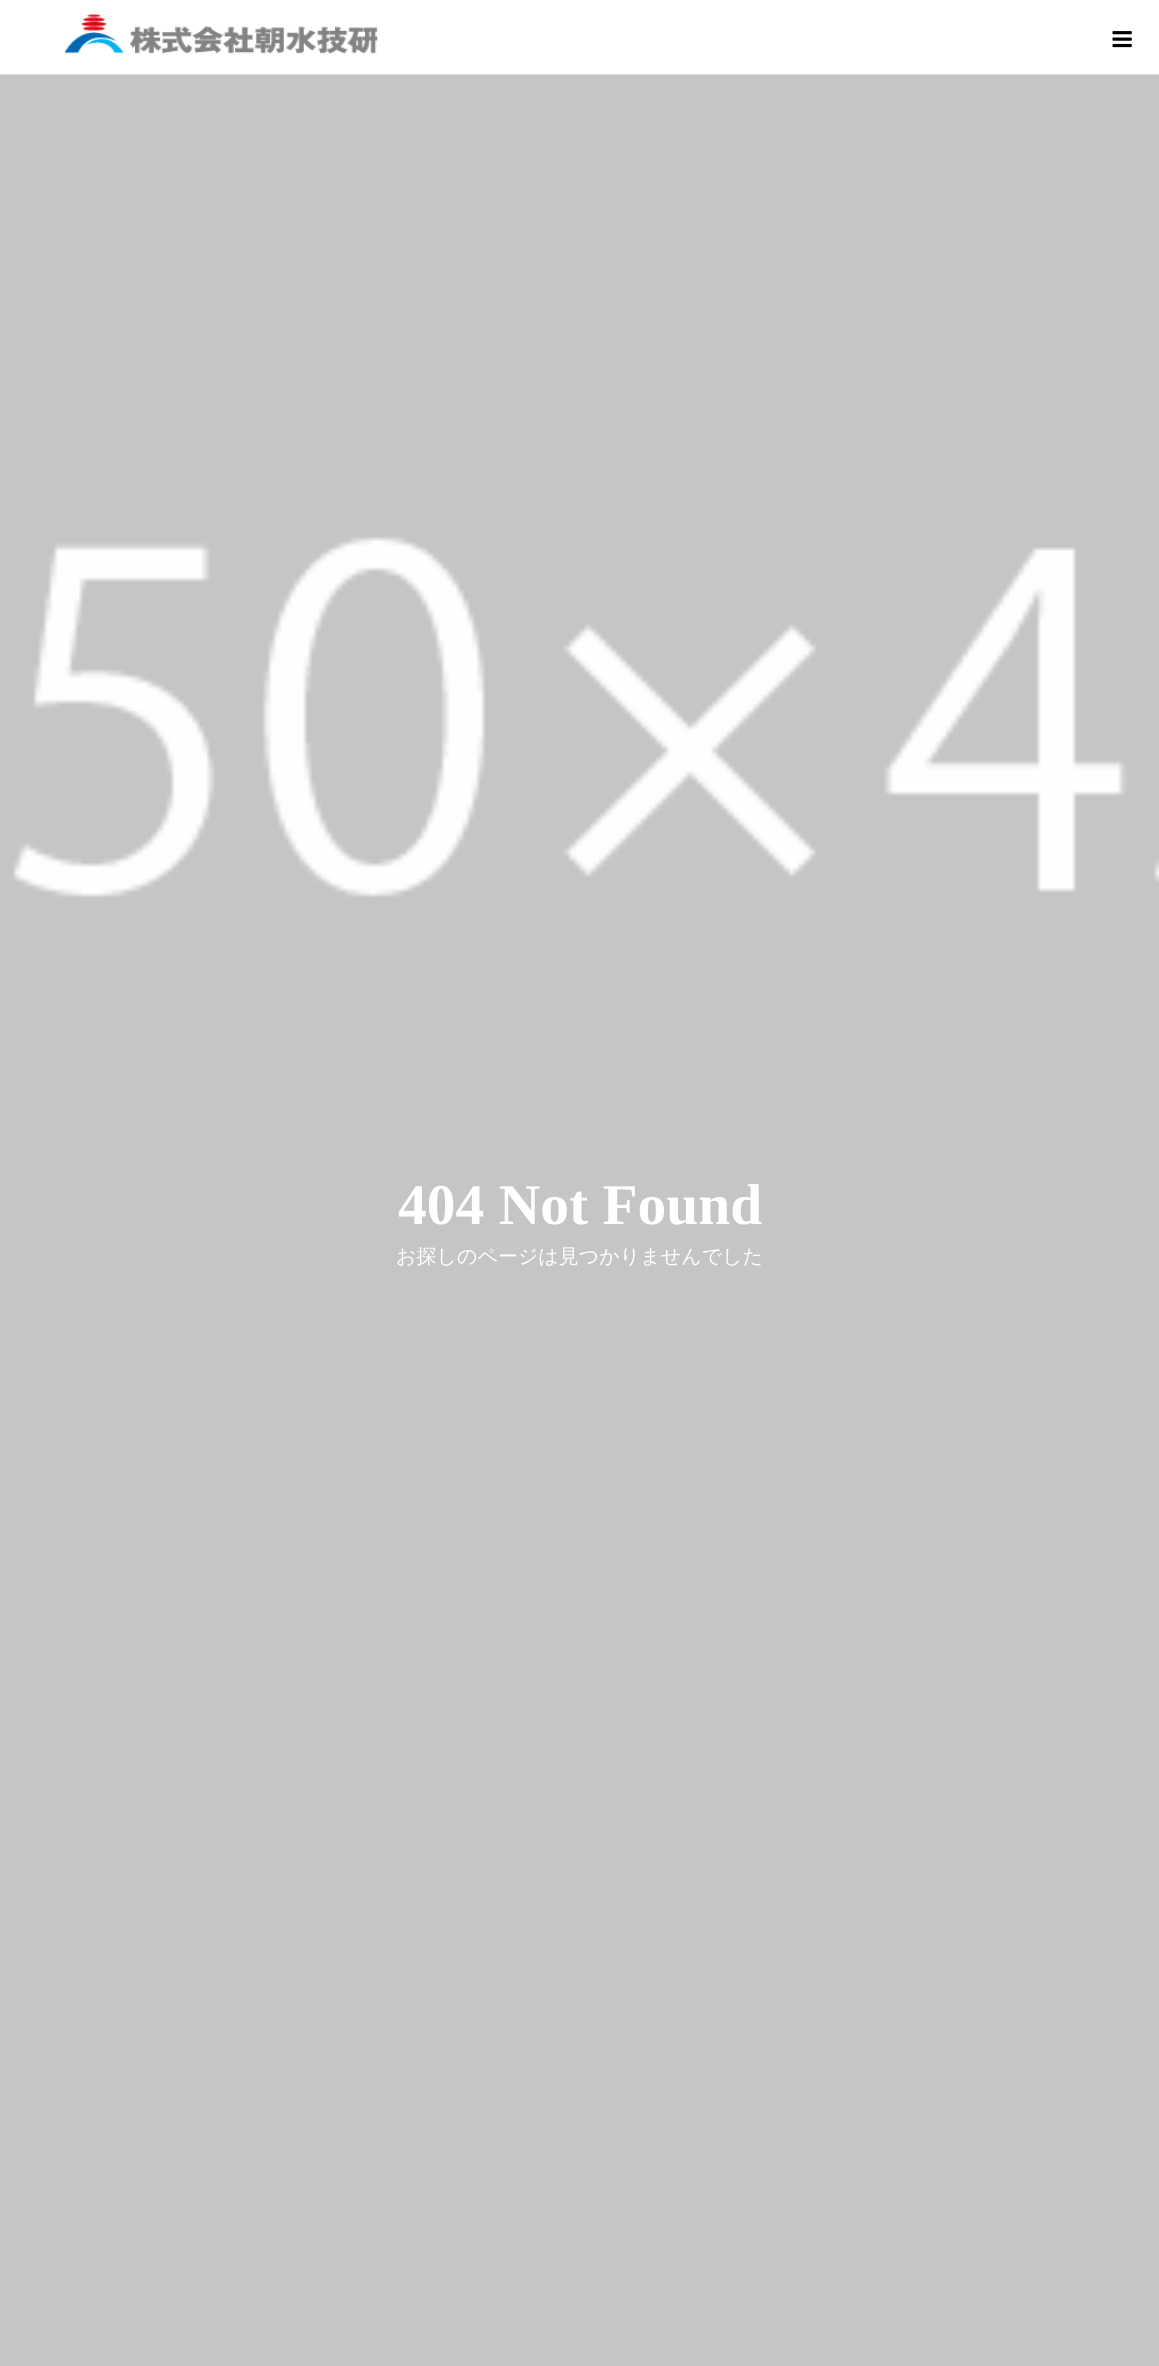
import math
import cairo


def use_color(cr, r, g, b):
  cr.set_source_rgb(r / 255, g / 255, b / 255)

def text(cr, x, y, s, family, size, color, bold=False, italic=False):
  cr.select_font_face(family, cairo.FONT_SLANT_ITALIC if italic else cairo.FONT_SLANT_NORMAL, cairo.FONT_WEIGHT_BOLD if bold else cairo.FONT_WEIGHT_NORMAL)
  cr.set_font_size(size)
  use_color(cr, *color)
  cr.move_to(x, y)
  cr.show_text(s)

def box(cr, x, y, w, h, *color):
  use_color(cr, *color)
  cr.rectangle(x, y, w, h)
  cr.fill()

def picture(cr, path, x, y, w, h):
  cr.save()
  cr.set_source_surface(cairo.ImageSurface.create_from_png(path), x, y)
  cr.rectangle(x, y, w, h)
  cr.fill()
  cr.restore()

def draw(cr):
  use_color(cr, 255, 255, 255)
  cr.paint()
  box(cr, 0, 74, 1159, 1, 221, 221, 221)
  picture(cr, "img_01.png", 65, 14, 313, 41)
  picture(cr, "img_02.png", 1112, 31, 20, 17)
  picture(cr, "img_03.png", 0, 75, 1159, 2291)
  text(cr, 398, 1224, "404 Not Found", "Liberation Serif", 57.5, (255, 255, 255), bold=True)
  text(cr, 396, 1263, "お探しのページは見つかりませんでした", "WenQuanYi Zen Hei Medium", 20, (255, 255, 255))


surface = cairo.ImageSurface(cairo.FORMAT_RGB24, 1159, 2366)
cr = cairo.Context(surface)
options = cairo.FontOptions()
options.set_hint_metrics(cairo.HINT_METRICS_OFF)
options.set_hint_style(cairo.HINT_STYLE_NONE)
cr.set_font_options(options)
cr.set_miter_limit(4)
draw(cr)
surface.write_to_png("out.png")
